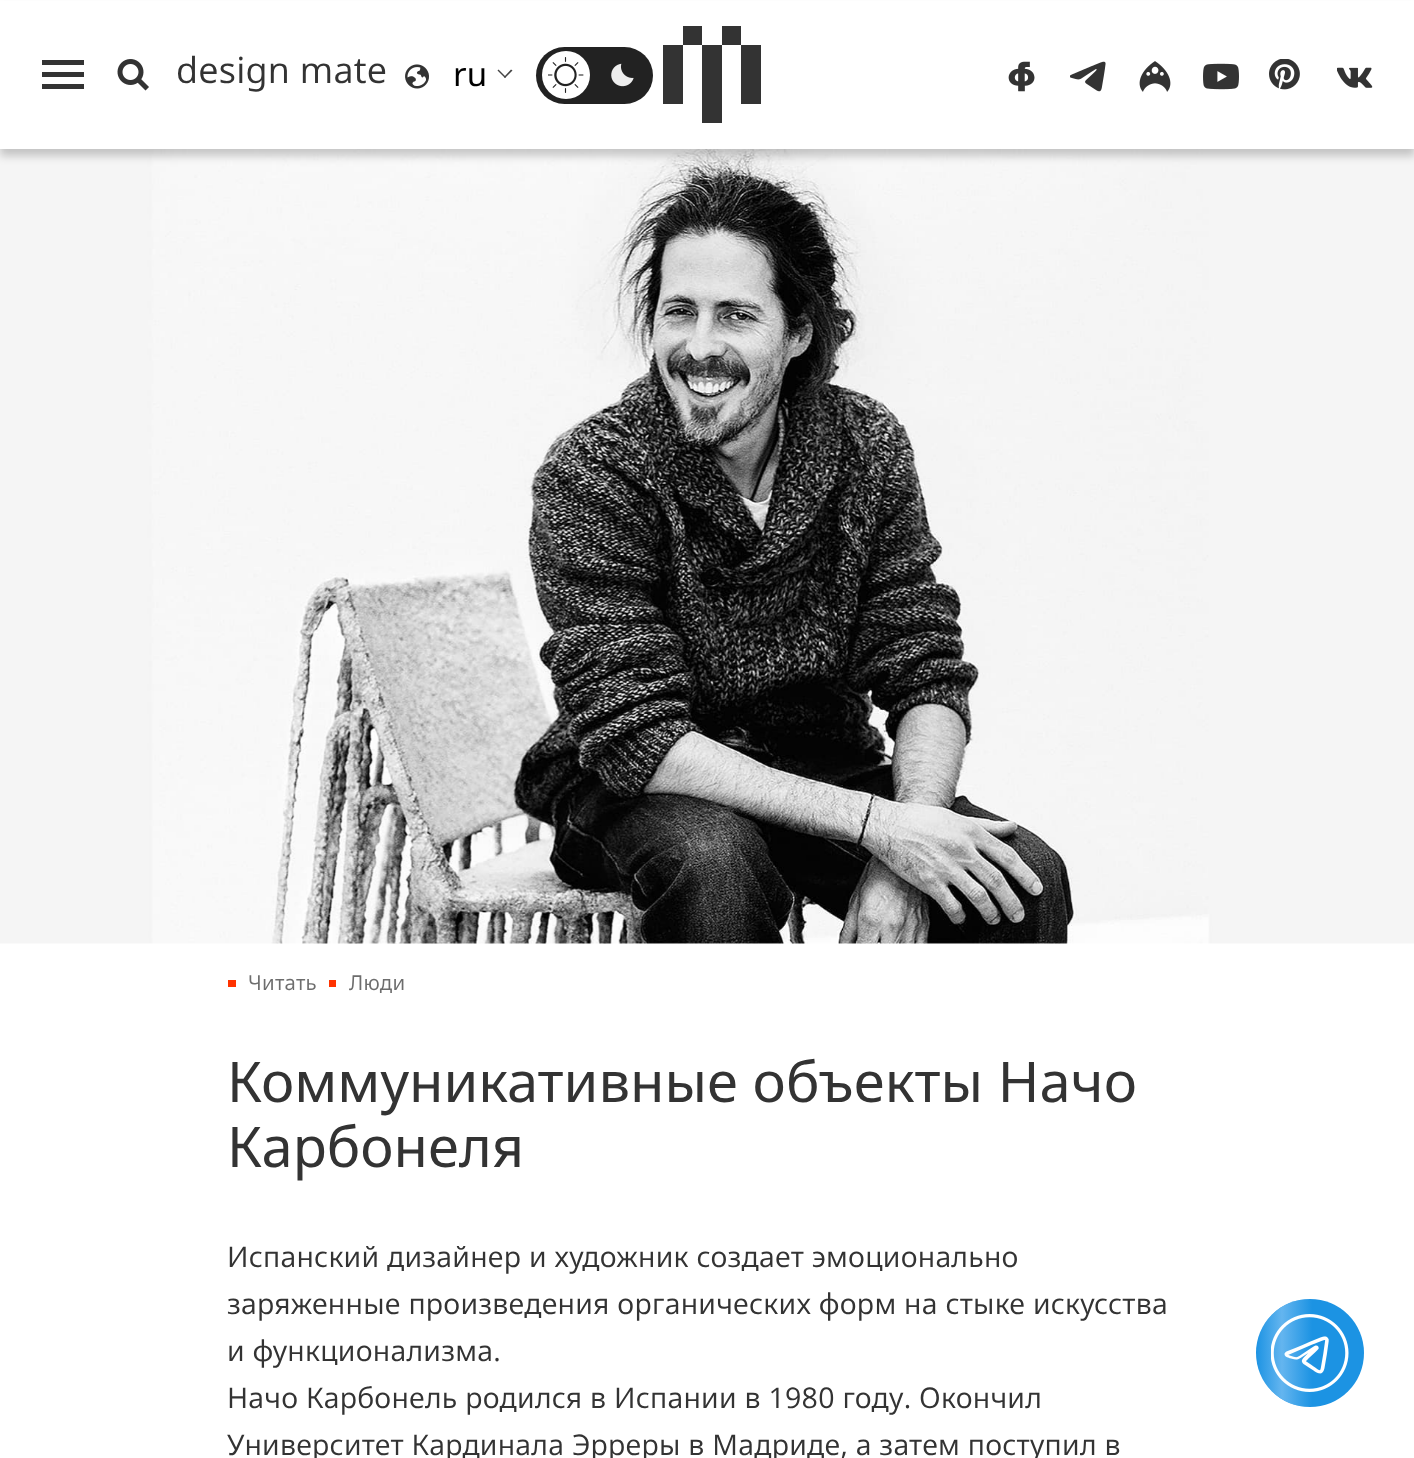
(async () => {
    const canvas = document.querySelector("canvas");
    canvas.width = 1414;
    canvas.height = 1458;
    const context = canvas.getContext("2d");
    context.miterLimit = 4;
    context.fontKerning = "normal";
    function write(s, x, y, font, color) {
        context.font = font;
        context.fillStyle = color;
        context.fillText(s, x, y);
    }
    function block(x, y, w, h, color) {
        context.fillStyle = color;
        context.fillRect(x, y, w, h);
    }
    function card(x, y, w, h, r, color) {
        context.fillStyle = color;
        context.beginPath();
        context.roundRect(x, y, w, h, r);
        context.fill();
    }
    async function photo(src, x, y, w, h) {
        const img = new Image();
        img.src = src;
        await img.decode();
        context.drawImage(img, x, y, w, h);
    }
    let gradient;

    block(0, 0, 1414, 1458, "rgb(255, 255, 255)");
    await photo("media/11.png", 0, 149, 1414, 795);
    context.fillStyle = "rgba(0, 0, 0, 0.2)";
    context.filter = "blur(4px)";
    context.beginPath();
    context.rect(0, 8, 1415, 148);
    context.fill();
    context.filter = "none";
    block(0, 1, 1414, 148, "rgb(255, 255, 255)");
    block(42, 60, 42, 5, "rgb(51, 51, 51)");
    block(42, 72, 42, 5, "rgb(51, 51, 51)");
    block(42, 84, 42, 5, "rgb(51, 51, 51)");
    await photo("media/1.png", 117, 59, 32, 32);
    context.letterSpacing = "0.25px";
    write("design mate", 176, 83, "36px Noto Sans", "rgb(51, 51, 51)");
    await photo("media/2.png", 405, 64, 24, 25);
    context.letterSpacing = "0px";
    write("ru", 453, 86, "33px 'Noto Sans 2'", "rgb(0, 0, 0)");
    context.fillStyle = "rgb(68, 68, 68)";
    context.beginPath();
    context.moveTo(511, 69.5);
    context.lineTo(512.5, 70.5);
    context.lineTo(505, 78);
    context.lineTo(504, 77);
    context.closePath();
    context.fill();
    context.beginPath();
    context.moveTo(498.5, 69.5);
    context.lineTo(506, 77);
    context.lineTo(505, 78);
    context.lineTo(497.5, 70.5);
    context.closePath();
    context.fill();
    card(536, 47, 117, 57, 28.5, "rgb(34, 34, 34)");
    context.fillStyle = "rgb(255, 255, 255)";
    context.beginPath();
    context.arc(566, 75, 24, 0, Math.PI * 2);
    context.fill();
    await photo("media/3.png", 548, 57, 36, 36);
    await photo("media/4.png", 611, 63, 23, 24);
    block(683, 26, 19, 19, "rgb(51, 51, 51)");
    block(722, 26, 19, 19, "rgb(51, 51, 51)");
    block(663, 45, 20, 59, "rgb(51, 51, 51)");
    block(702, 45, 20, 78, "rgb(51, 51, 51)");
    block(741, 45, 20, 59, "rgb(51, 51, 51)");
    await photo("media/5.png", 1008, 61, 27, 31);
    await photo("media/6.png", 1070, 61, 36, 31);
    await photo("media/7.png", 1139, 61, 32, 31);
    await photo("media/8.png", 1203, 63, 36, 27);
    await photo("media/9.png", 1269, 59, 31, 31);
    await photo("media/10.png", 1337, 67, 36, 21);
    block(228, 980, 8, 7, "rgb(255, 51, 0)");
    context.letterSpacing = "0.25px";
    write("Читать", 248, 990, "20.5px Noto Sans", "rgb(109, 109, 109)");
    block(329, 980, 7, 7, "rgb(255, 51, 0)");
    write("Люди", 349, 990, "20.5px Noto Sans", "rgb(109, 109, 109)");
    context.letterSpacing = "0px";
    write("Коммуникативные объекты Начо", 227, 1102, "56.1px 'Noto Sans 2'", "rgb(51, 51, 51)");
    write("Карбонеля", 227, 1167, "56.1px 'Noto Sans 2'", "rgb(51, 51, 51)");
    context.letterSpacing = "0.25px";
    write("Испанский дизайнер и художник создает эмоционально", 227, 1267, "28.55px Noto Sans", "rgb(51, 51, 51)");
    write("заряженные произведения органических форм на стыке искусства", 227, 1314, "28.55px Noto Sans", "rgb(51, 51, 51)");
    write("и функционализма.", 227, 1361, "28.55px Noto Sans", "rgb(51, 51, 51)");
    write("Начо Карбонель родился в Испании в 1980 году. Окончил", 227, 1408, "28.55px Noto Sans", "rgb(51, 51, 51)");
    write("Университет Кардинала Эрреры в Мадриде, а затем поступил в", 227, 1455, "28.55px Noto Sans", "rgb(51, 51, 51)");
    context.fillStyle = "rgb(28, 147, 227)";
    context.beginPath();
    context.arc(1310, 1353, 54, 0, Math.PI * 2);
    context.fill();
    gradient = context.createLinearGradient(1364, 1353, 1256, 1353);
    gradient.addColorStop(0.48, "rgba(100, 181, 239, 0)");
    gradient.addColorStop(0.76, "rgb(100, 181, 239)");
    gradient.addColorStop(1, "rgba(100, 181, 239, 0)");
    context.fillStyle = gradient;
    context.beginPath();
    context.arc(1310, 1353, 54, 0, Math.PI * 2);
    context.fill();
    await photo("media/12.png", 1271, 1314, 78, 78);
})();
